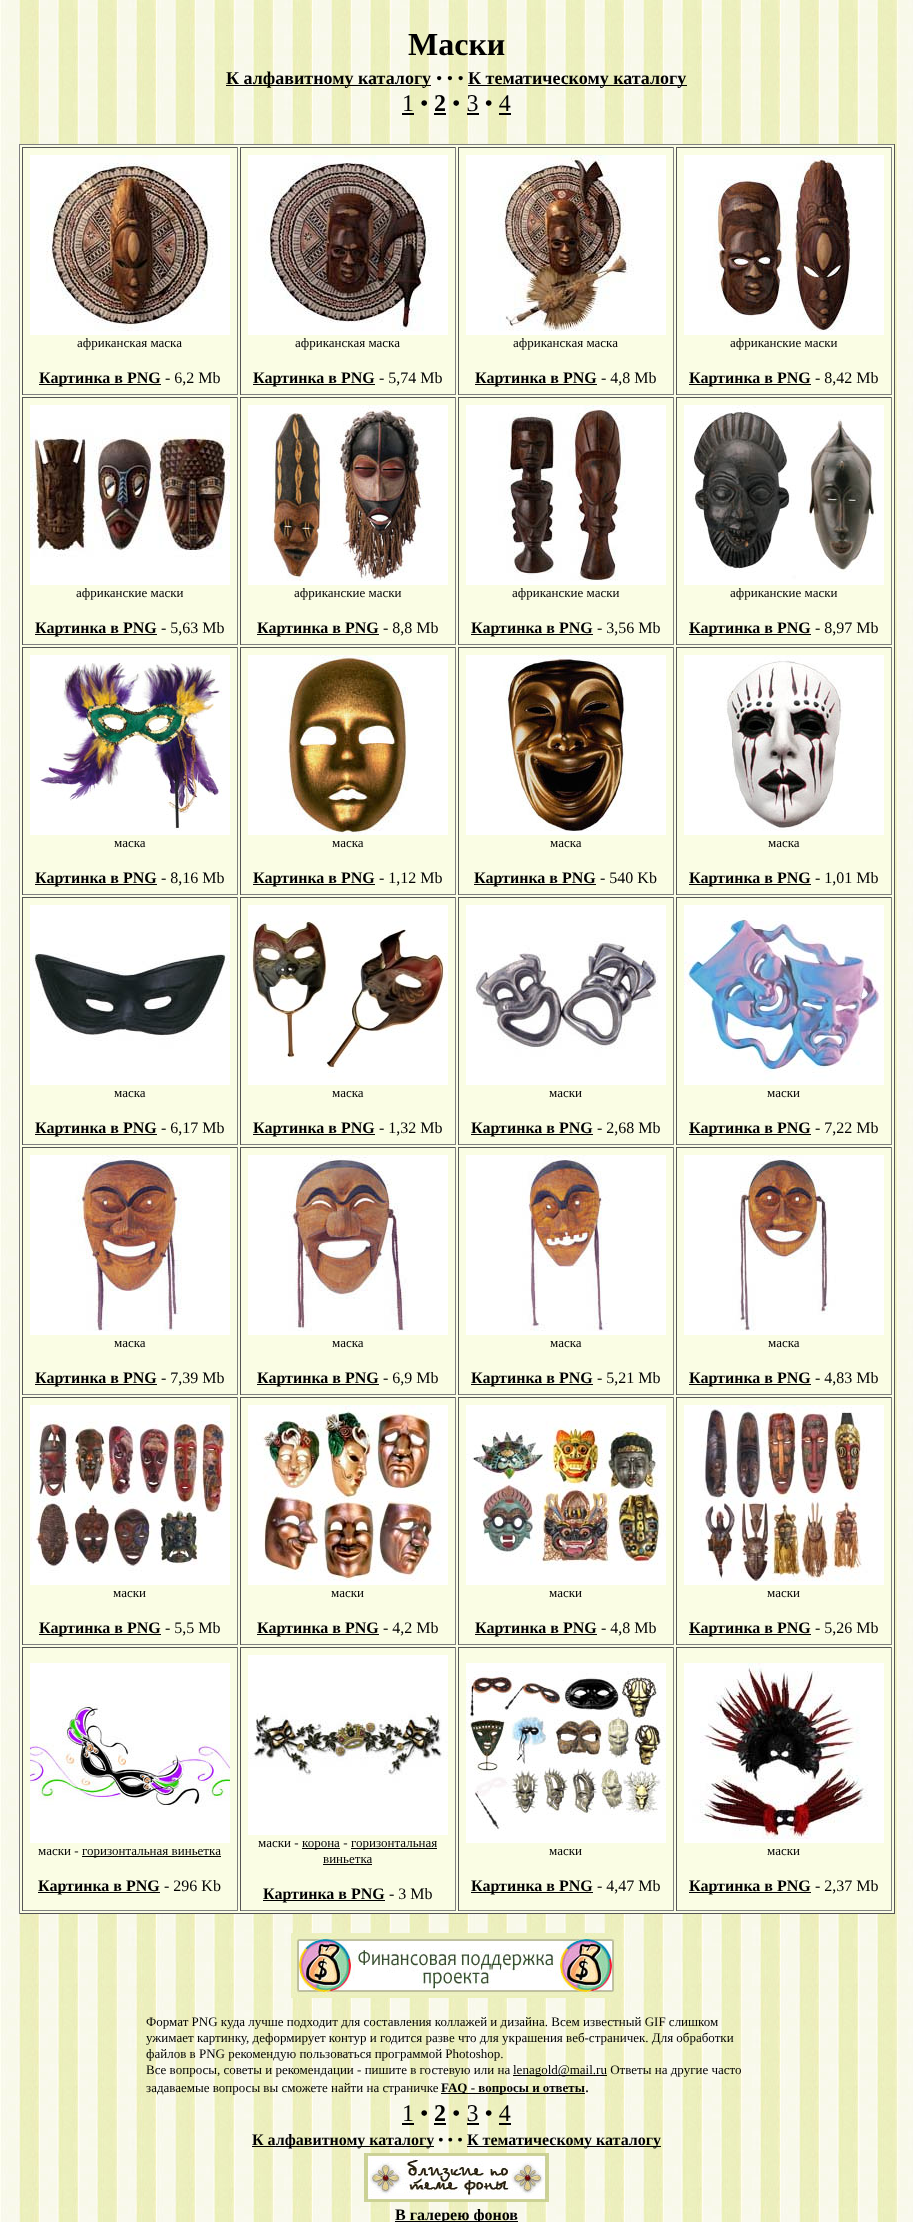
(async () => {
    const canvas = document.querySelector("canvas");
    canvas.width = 913;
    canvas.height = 2222;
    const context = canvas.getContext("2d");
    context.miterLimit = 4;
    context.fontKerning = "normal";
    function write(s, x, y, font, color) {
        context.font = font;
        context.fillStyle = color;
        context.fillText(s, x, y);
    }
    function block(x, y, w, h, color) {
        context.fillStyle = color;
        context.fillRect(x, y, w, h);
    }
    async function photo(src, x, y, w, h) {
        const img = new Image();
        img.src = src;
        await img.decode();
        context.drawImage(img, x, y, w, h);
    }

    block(0, 0, 913, 2222, "rgb(255, 255, 255)");
    await photo("media/1.png", 0, 0, 913, 2222);
    write("Маски", 408, 55, "bold 32px Liberation Serif", "rgb(0, 0, 0)");
    block(226, 85, 205, 1, "rgb(0, 0, 0)");
    write("К алфавитному каталогу", 226, 84, "bold 18px Liberation Serif", "rgb(0, 0, 0)");
    write("• • •", 436, 84, "18px Liberation Serif", "rgb(0, 0, 0)");
    block(468, 85, 219, 1, "rgb(0, 0, 0)");
    write("К тематическому каталогу", 468, 84, "bold 18px Liberation Serif", "rgb(0, 0, 0)");
    write("1 •", 402, 111, "24px Liberation Serif", "rgb(0, 0, 0)");
    block(402, 113, 12, 2, "rgb(0, 0, 0)");
    write("2", 434, 111, "bold 24px Liberation Serif", "rgb(0, 0, 0)");
    block(434, 113, 12, 2, "rgb(0, 0, 0)");
    write("• 3 • 4", 452, 111, "24px Liberation Serif", "rgb(0, 0, 0)");
    block(467, 113, 12, 2, "rgb(0, 0, 0)");
    block(499, 113, 12, 2, "rgb(0, 0, 0)");
    block(20, 145, 874, 1768, "rgb(250, 253, 228)");
    block(19, 144, 876, 1, "rgb(128, 128, 128)");
    block(894, 144, 1, 1770, "rgb(85, 85, 85)");
    block(19, 1913, 876, 1, "rgb(85, 85, 85)");
    block(19, 144, 1, 1770, "rgb(128, 128, 128)");
    block(22, 147, 216, 1, "rgb(85, 85, 85)");
    block(237, 147, 1, 248, "rgb(128, 128, 128)");
    block(22, 394, 216, 1, "rgb(128, 128, 128)");
    block(22, 147, 1, 248, "rgb(85, 85, 85)");
    await photo("media/2.png", 30, 155, 200, 180);
    write("африканская маска", 77, 347, "13px Liberation Serif", "rgb(0, 0, 0)");
    block(39, 384, 122, 1, "rgb(0, 0, 0)");
    write("Картинка в PNG", 39, 383, "bold 16px Liberation Serif", "rgb(0, 0, 0)");
    write("- 6,2 Mb", 165, 383, "16px Liberation Serif", "rgb(0, 0, 0)");
    block(240, 147, 216, 1, "rgb(85, 85, 85)");
    block(455, 147, 1, 248, "rgb(128, 128, 128)");
    block(240, 394, 216, 1, "rgb(128, 128, 128)");
    block(240, 147, 1, 248, "rgb(85, 85, 85)");
    await photo("media/3.png", 248, 155, 200, 180);
    write("африканская маска", 295, 347, "13px Liberation Serif", "rgb(0, 0, 0)");
    block(253, 384, 122, 1, "rgb(0, 0, 0)");
    write("Картинка в PNG", 253, 383, "bold 16px Liberation Serif", "rgb(0, 0, 0)");
    write("- 5,74 Mb", 379, 383, "16px Liberation Serif", "rgb(0, 0, 0)");
    block(458, 147, 216, 1, "rgb(85, 85, 85)");
    block(673, 147, 1, 248, "rgb(128, 128, 128)");
    block(458, 394, 216, 1, "rgb(128, 128, 128)");
    block(458, 147, 1, 248, "rgb(85, 85, 85)");
    await photo("media/4.png", 466, 155, 200, 180);
    write("африканская маска", 513, 347, "13px Liberation Serif", "rgb(0, 0, 0)");
    block(475, 384, 122, 1, "rgb(0, 0, 0)");
    write("Картинка в PNG", 475, 383, "bold 16px Liberation Serif", "rgb(0, 0, 0)");
    write("- 4,8 Mb", 601, 383, "16px Liberation Serif", "rgb(0, 0, 0)");
    block(676, 147, 216, 1, "rgb(85, 85, 85)");
    block(891, 147, 1, 248, "rgb(128, 128, 128)");
    block(676, 394, 216, 1, "rgb(128, 128, 128)");
    block(676, 147, 1, 248, "rgb(85, 85, 85)");
    await photo("media/5.png", 684, 155, 200, 180);
    write("африканские маски", 730, 347, "13px Liberation Serif", "rgb(0, 0, 0)");
    block(689, 384, 122, 1, "rgb(0, 0, 0)");
    write("Картинка в PNG", 689, 383, "bold 16px Liberation Serif", "rgb(0, 0, 0)");
    write("- 8,42 Mb", 815, 383, "16px Liberation Serif", "rgb(0, 0, 0)");
    block(22, 397, 216, 1, "rgb(85, 85, 85)");
    block(237, 397, 1, 248, "rgb(128, 128, 128)");
    block(22, 644, 216, 1, "rgb(128, 128, 128)");
    block(22, 397, 1, 248, "rgb(85, 85, 85)");
    await photo("media/6.png", 30, 405, 200, 180);
    write("африканские маски", 76, 597, "13px Liberation Serif", "rgb(0, 0, 0)");
    block(35, 634, 122, 1, "rgb(0, 0, 0)");
    write("Картинка в PNG", 35, 633, "bold 16px Liberation Serif", "rgb(0, 0, 0)");
    write("- 5,63 Mb", 161, 633, "16px Liberation Serif", "rgb(0, 0, 0)");
    block(240, 397, 216, 1, "rgb(85, 85, 85)");
    block(455, 397, 1, 248, "rgb(128, 128, 128)");
    block(240, 644, 216, 1, "rgb(128, 128, 128)");
    block(240, 397, 1, 248, "rgb(85, 85, 85)");
    await photo("media/7.png", 248, 405, 200, 180);
    write("африканские маски", 294, 597, "13px Liberation Serif", "rgb(0, 0, 0)");
    block(257, 634, 122, 1, "rgb(0, 0, 0)");
    write("Картинка в PNG", 257, 633, "bold 16px Liberation Serif", "rgb(0, 0, 0)");
    write("- 8,8 Mb", 383, 633, "16px Liberation Serif", "rgb(0, 0, 0)");
    block(458, 397, 216, 1, "rgb(85, 85, 85)");
    block(673, 397, 1, 248, "rgb(128, 128, 128)");
    block(458, 644, 216, 1, "rgb(128, 128, 128)");
    block(458, 397, 1, 248, "rgb(85, 85, 85)");
    await photo("media/8.png", 466, 405, 200, 180);
    write("африканские маски", 512, 597, "13px Liberation Serif", "rgb(0, 0, 0)");
    block(471, 634, 122, 1, "rgb(0, 0, 0)");
    write("Картинка в PNG", 471, 633, "bold 16px Liberation Serif", "rgb(0, 0, 0)");
    write("- 3,56 Mb", 597, 633, "16px Liberation Serif", "rgb(0, 0, 0)");
    block(676, 397, 216, 1, "rgb(85, 85, 85)");
    block(891, 397, 1, 248, "rgb(128, 128, 128)");
    block(676, 644, 216, 1, "rgb(128, 128, 128)");
    block(676, 397, 1, 248, "rgb(85, 85, 85)");
    await photo("media/9.png", 684, 405, 200, 180);
    write("африканские маски", 730, 597, "13px Liberation Serif", "rgb(0, 0, 0)");
    block(689, 634, 122, 1, "rgb(0, 0, 0)");
    write("Картинка в PNG", 689, 633, "bold 16px Liberation Serif", "rgb(0, 0, 0)");
    write("- 8,97 Mb", 815, 633, "16px Liberation Serif", "rgb(0, 0, 0)");
    block(22, 647, 216, 1, "rgb(85, 85, 85)");
    block(237, 647, 1, 248, "rgb(128, 128, 128)");
    block(22, 894, 216, 1, "rgb(128, 128, 128)");
    block(22, 647, 1, 248, "rgb(85, 85, 85)");
    await photo("media/10.png", 30, 655, 200, 180);
    write("маска", 114, 847, "13px Liberation Serif", "rgb(0, 0, 0)");
    block(35, 884, 122, 1, "rgb(0, 0, 0)");
    write("Картинка в PNG", 35, 883, "bold 16px Liberation Serif", "rgb(0, 0, 0)");
    write("- 8,16 Mb", 161, 883, "16px Liberation Serif", "rgb(0, 0, 0)");
    block(240, 647, 216, 1, "rgb(85, 85, 85)");
    block(455, 647, 1, 248, "rgb(128, 128, 128)");
    block(240, 894, 216, 1, "rgb(128, 128, 128)");
    block(240, 647, 1, 248, "rgb(85, 85, 85)");
    await photo("media/11.png", 248, 655, 200, 180);
    write("маска", 332, 847, "13px Liberation Serif", "rgb(0, 0, 0)");
    block(253, 884, 122, 1, "rgb(0, 0, 0)");
    write("Картинка в PNG", 253, 883, "bold 16px Liberation Serif", "rgb(0, 0, 0)");
    write("- 1,12 Mb", 379, 883, "16px Liberation Serif", "rgb(0, 0, 0)");
    block(458, 647, 216, 1, "rgb(85, 85, 85)");
    block(673, 647, 1, 248, "rgb(128, 128, 128)");
    block(458, 894, 216, 1, "rgb(128, 128, 128)");
    block(458, 647, 1, 248, "rgb(85, 85, 85)");
    await photo("media/12.png", 466, 655, 200, 180);
    write("маска", 550, 847, "13px Liberation Serif", "rgb(0, 0, 0)");
    block(474, 884, 122, 1, "rgb(0, 0, 0)");
    write("Картинка в PNG", 474, 883, "bold 16px Liberation Serif", "rgb(0, 0, 0)");
    write("- 540 Kb", 600, 883, "16px Liberation Serif", "rgb(0, 0, 0)");
    block(676, 647, 216, 1, "rgb(85, 85, 85)");
    block(891, 647, 1, 248, "rgb(128, 128, 128)");
    block(676, 894, 216, 1, "rgb(128, 128, 128)");
    block(676, 647, 1, 248, "rgb(85, 85, 85)");
    await photo("media/13.png", 684, 655, 200, 180);
    write("маска", 768, 847, "13px Liberation Serif", "rgb(0, 0, 0)");
    block(689, 884, 122, 1, "rgb(0, 0, 0)");
    write("Картинка в PNG", 689, 883, "bold 16px Liberation Serif", "rgb(0, 0, 0)");
    write("- 1,01 Mb", 815, 883, "16px Liberation Serif", "rgb(0, 0, 0)");
    block(22, 897, 216, 1, "rgb(85, 85, 85)");
    block(237, 897, 1, 248, "rgb(128, 128, 128)");
    block(22, 1144, 216, 1, "rgb(128, 128, 128)");
    block(22, 897, 1, 248, "rgb(85, 85, 85)");
    await photo("media/14.png", 30, 905, 200, 180);
    write("маска", 114, 1097, "13px Liberation Serif", "rgb(0, 0, 0)");
    block(35, 1134, 122, 1, "rgb(0, 0, 0)");
    write("Картинка в PNG", 35, 1133, "bold 16px Liberation Serif", "rgb(0, 0, 0)");
    write("- 6,17 Mb", 161, 1133, "16px Liberation Serif", "rgb(0, 0, 0)");
    block(240, 897, 216, 1, "rgb(85, 85, 85)");
    block(455, 897, 1, 248, "rgb(128, 128, 128)");
    block(240, 1144, 216, 1, "rgb(128, 128, 128)");
    block(240, 897, 1, 248, "rgb(85, 85, 85)");
    await photo("media/15.png", 248, 905, 200, 180);
    write("маска", 332, 1097, "13px Liberation Serif", "rgb(0, 0, 0)");
    block(253, 1134, 122, 1, "rgb(0, 0, 0)");
    write("Картинка в PNG", 253, 1133, "bold 16px Liberation Serif", "rgb(0, 0, 0)");
    write("- 1,32 Mb", 379, 1133, "16px Liberation Serif", "rgb(0, 0, 0)");
    block(458, 897, 216, 1, "rgb(85, 85, 85)");
    block(673, 897, 1, 248, "rgb(128, 128, 128)");
    block(458, 1144, 216, 1, "rgb(128, 128, 128)");
    block(458, 897, 1, 248, "rgb(85, 85, 85)");
    await photo("media/16.png", 466, 905, 200, 180);
    write("маски", 549, 1097, "13px Liberation Serif", "rgb(0, 0, 0)");
    block(471, 1134, 122, 1, "rgb(0, 0, 0)");
    write("Картинка в PNG", 471, 1133, "bold 16px Liberation Serif", "rgb(0, 0, 0)");
    write("- 2,68 Mb", 597, 1133, "16px Liberation Serif", "rgb(0, 0, 0)");
    block(676, 897, 216, 1, "rgb(85, 85, 85)");
    block(891, 897, 1, 248, "rgb(128, 128, 128)");
    block(676, 1144, 216, 1, "rgb(128, 128, 128)");
    block(676, 897, 1, 248, "rgb(85, 85, 85)");
    await photo("media/17.png", 684, 905, 200, 180);
    write("маски", 767, 1097, "13px Liberation Serif", "rgb(0, 0, 0)");
    block(689, 1134, 122, 1, "rgb(0, 0, 0)");
    write("Картинка в PNG", 689, 1133, "bold 16px Liberation Serif", "rgb(0, 0, 0)");
    write("- 7,22 Mb", 815, 1133, "16px Liberation Serif", "rgb(0, 0, 0)");
    block(22, 1147, 216, 1, "rgb(85, 85, 85)");
    block(237, 1147, 1, 248, "rgb(128, 128, 128)");
    block(22, 1394, 216, 1, "rgb(128, 128, 128)");
    block(22, 1147, 1, 248, "rgb(85, 85, 85)");
    await photo("media/18.png", 30, 1155, 200, 180);
    write("маска", 114, 1347, "13px Liberation Serif", "rgb(0, 0, 0)");
    block(35, 1384, 122, 1, "rgb(0, 0, 0)");
    write("Картинка в PNG", 35, 1383, "bold 16px Liberation Serif", "rgb(0, 0, 0)");
    write("- 7,39 Mb", 161, 1383, "16px Liberation Serif", "rgb(0, 0, 0)");
    block(240, 1147, 216, 1, "rgb(85, 85, 85)");
    block(455, 1147, 1, 248, "rgb(128, 128, 128)");
    block(240, 1394, 216, 1, "rgb(128, 128, 128)");
    block(240, 1147, 1, 248, "rgb(85, 85, 85)");
    await photo("media/19.png", 248, 1155, 200, 180);
    write("маска", 332, 1347, "13px Liberation Serif", "rgb(0, 0, 0)");
    block(257, 1384, 122, 1, "rgb(0, 0, 0)");
    write("Картинка в PNG", 257, 1383, "bold 16px Liberation Serif", "rgb(0, 0, 0)");
    write("- 6,9 Mb", 383, 1383, "16px Liberation Serif", "rgb(0, 0, 0)");
    block(458, 1147, 216, 1, "rgb(85, 85, 85)");
    block(673, 1147, 1, 248, "rgb(128, 128, 128)");
    block(458, 1394, 216, 1, "rgb(128, 128, 128)");
    block(458, 1147, 1, 248, "rgb(85, 85, 85)");
    await photo("media/20.png", 466, 1155, 200, 180);
    write("маска", 550, 1347, "13px Liberation Serif", "rgb(0, 0, 0)");
    block(471, 1384, 122, 1, "rgb(0, 0, 0)");
    write("Картинка в PNG", 471, 1383, "bold 16px Liberation Serif", "rgb(0, 0, 0)");
    write("- 5,21 Mb", 597, 1383, "16px Liberation Serif", "rgb(0, 0, 0)");
    block(676, 1147, 216, 1, "rgb(85, 85, 85)");
    block(891, 1147, 1, 248, "rgb(128, 128, 128)");
    block(676, 1394, 216, 1, "rgb(128, 128, 128)");
    block(676, 1147, 1, 248, "rgb(85, 85, 85)");
    await photo("media/21.png", 684, 1155, 200, 180);
    write("маска", 768, 1347, "13px Liberation Serif", "rgb(0, 0, 0)");
    block(689, 1384, 122, 1, "rgb(0, 0, 0)");
    write("Картинка в PNG", 689, 1383, "bold 16px Liberation Serif", "rgb(0, 0, 0)");
    write("- 4,83 Mb", 815, 1383, "16px Liberation Serif", "rgb(0, 0, 0)");
    block(22, 1397, 216, 1, "rgb(85, 85, 85)");
    block(237, 1397, 1, 248, "rgb(128, 128, 128)");
    block(22, 1644, 216, 1, "rgb(128, 128, 128)");
    block(22, 1397, 1, 248, "rgb(85, 85, 85)");
    await photo("media/22.png", 30, 1405, 200, 180);
    write("маски", 113, 1597, "13px Liberation Serif", "rgb(0, 0, 0)");
    block(39, 1634, 122, 1, "rgb(0, 0, 0)");
    write("Картинка в PNG", 39, 1633, "bold 16px Liberation Serif", "rgb(0, 0, 0)");
    write("- 5,5 Mb", 165, 1633, "16px Liberation Serif", "rgb(0, 0, 0)");
    block(240, 1397, 216, 1, "rgb(85, 85, 85)");
    block(455, 1397, 1, 248, "rgb(128, 128, 128)");
    block(240, 1644, 216, 1, "rgb(128, 128, 128)");
    block(240, 1397, 1, 248, "rgb(85, 85, 85)");
    await photo("media/23.png", 248, 1405, 200, 180);
    write("маски", 331, 1597, "13px Liberation Serif", "rgb(0, 0, 0)");
    block(257, 1634, 122, 1, "rgb(0, 0, 0)");
    write("Картинка в PNG", 257, 1633, "bold 16px Liberation Serif", "rgb(0, 0, 0)");
    write("- 4,2 Mb", 383, 1633, "16px Liberation Serif", "rgb(0, 0, 0)");
    block(458, 1397, 216, 1, "rgb(85, 85, 85)");
    block(673, 1397, 1, 248, "rgb(128, 128, 128)");
    block(458, 1644, 216, 1, "rgb(128, 128, 128)");
    block(458, 1397, 1, 248, "rgb(85, 85, 85)");
    await photo("media/24.png", 466, 1405, 200, 180);
    write("маски", 549, 1597, "13px Liberation Serif", "rgb(0, 0, 0)");
    block(475, 1634, 122, 1, "rgb(0, 0, 0)");
    write("Картинка в PNG", 475, 1633, "bold 16px Liberation Serif", "rgb(0, 0, 0)");
    write("- 4,8 Mb", 601, 1633, "16px Liberation Serif", "rgb(0, 0, 0)");
    block(676, 1397, 216, 1, "rgb(85, 85, 85)");
    block(891, 1397, 1, 248, "rgb(128, 128, 128)");
    block(676, 1644, 216, 1, "rgb(128, 128, 128)");
    block(676, 1397, 1, 248, "rgb(85, 85, 85)");
    await photo("media/25.png", 684, 1405, 200, 180);
    write("маски", 767, 1597, "13px Liberation Serif", "rgb(0, 0, 0)");
    block(689, 1634, 122, 1, "rgb(0, 0, 0)");
    write("Картинка в PNG", 689, 1633, "bold 16px Liberation Serif", "rgb(0, 0, 0)");
    write("- 5,26 Mb", 815, 1633, "16px Liberation Serif", "rgb(0, 0, 0)");
    block(22, 1647, 216, 1, "rgb(85, 85, 85)");
    block(237, 1647, 1, 264, "rgb(128, 128, 128)");
    block(22, 1910, 216, 1, "rgb(128, 128, 128)");
    block(22, 1647, 1, 264, "rgb(85, 85, 85)");
    await photo("media/26.png", 30, 1663, 200, 180);
    write("маски -", 38, 1855, "13px Liberation Serif", "rgb(0, 0, 0)");
    block(82, 1856, 139, 1, "rgb(0, 0, 0)");
    write("горизонтальная виньетка", 82, 1855, "13px Liberation Serif", "rgb(0, 0, 0)");
    block(38, 1892, 122, 1, "rgb(0, 0, 0)");
    write("Картинка в PNG", 38, 1891, "bold 16px Liberation Serif", "rgb(0, 0, 0)");
    write("- 296 Kb", 164, 1891, "16px Liberation Serif", "rgb(0, 0, 0)");
    block(240, 1647, 216, 1, "rgb(85, 85, 85)");
    block(455, 1647, 1, 264, "rgb(128, 128, 128)");
    block(240, 1910, 216, 1, "rgb(128, 128, 128)");
    block(240, 1647, 1, 264, "rgb(85, 85, 85)");
    await photo("media/27.png", 248, 1655, 200, 180);
    write("маски -", 258, 1847, "13px Liberation Serif", "rgb(0, 0, 0)");
    block(302, 1848, 38, 1, "rgb(0, 0, 0)");
    write("корона -", 302, 1847, "13px Liberation Serif", "rgb(0, 0, 0)");
    block(351, 1848, 86, 1, "rgb(0, 0, 0)");
    write("горизонтальная", 351, 1847, "13px Liberation Serif", "rgb(0, 0, 0)");
    write("виньетка", 323, 1863, "13px Liberation Serif", "rgb(0, 0, 0)");
    block(323, 1864, 49, 1, "rgb(0, 0, 0)");
    block(263, 1900, 122, 1, "rgb(0, 0, 0)");
    write("Картинка в PNG", 263, 1899, "bold 16px Liberation Serif", "rgb(0, 0, 0)");
    write("- 3 Mb", 389, 1899, "16px Liberation Serif", "rgb(0, 0, 0)");
    block(458, 1647, 216, 1, "rgb(85, 85, 85)");
    block(673, 1647, 1, 264, "rgb(128, 128, 128)");
    block(458, 1910, 216, 1, "rgb(128, 128, 128)");
    block(458, 1647, 1, 264, "rgb(85, 85, 85)");
    await photo("media/28.png", 466, 1663, 200, 180);
    write("маски", 549, 1855, "13px Liberation Serif", "rgb(0, 0, 0)");
    block(471, 1892, 122, 1, "rgb(0, 0, 0)");
    write("Картинка в PNG", 471, 1891, "bold 16px Liberation Serif", "rgb(0, 0, 0)");
    write("- 4,47 Mb", 597, 1891, "16px Liberation Serif", "rgb(0, 0, 0)");
    block(676, 1647, 216, 1, "rgb(85, 85, 85)");
    block(891, 1647, 1, 264, "rgb(128, 128, 128)");
    block(676, 1910, 216, 1, "rgb(128, 128, 128)");
    block(676, 1647, 1, 264, "rgb(85, 85, 85)");
    await photo("media/29.png", 684, 1663, 200, 180);
    write("маски", 767, 1855, "13px Liberation Serif", "rgb(0, 0, 0)");
    block(689, 1892, 122, 1, "rgb(0, 0, 0)");
    write("Картинка в PNG", 689, 1891, "bold 16px Liberation Serif", "rgb(0, 0, 0)");
    write("- 2,37 Mb", 815, 1891, "16px Liberation Serif", "rgb(0, 0, 0)");
    await photo("media/30.png", 291, 1933, 328, 65);
    write("Формат PNG куда лучше подходит для составления коллажей и дизайна. Всем известный GIF слишком", 146, 2026, "13px Liberation Serif", "rgb(0, 0, 0)");
    write("ужимает картинку, деформирует контур и годится разве что для украшения веб-страничек. Для обработки", 146, 2042, "13px Liberation Serif", "rgb(0, 0, 0)");
    write("файлов в PNG рекомендую пользоваться программой Photoshop.", 146, 2058, "13px Liberation Serif", "rgb(0, 0, 0)");
    write("Все вопросы, советы и рекомендации - пишите в гостевую или на", 146, 2074, "13px Liberation Serif", "rgb(0, 0, 0)");
    block(513, 2075, 94, 1, "rgb(0, 0, 0)");
    write("lenagold@mail.ru Ответы на другие часто", 513, 2074, "13px Liberation Serif", "rgb(0, 0, 0)");
    write("задаваемые вопросы вы сможете найти на страничке", 146, 2092, "13px Liberation Serif", "rgb(0, 0, 0)");
    block(441, 2093, 144, 1, "rgb(0, 0, 0)");
    write("FAQ - вопросы и ответы", 441, 2092, "bold 13px Liberation Serif", "rgb(0, 0, 0)");
    write(".", 585, 2092, "16px Liberation Serif", "rgb(0, 0, 0)");
    write("1 •", 402, 2121, "24px Liberation Serif", "rgb(0, 0, 0)");
    block(402, 2123, 12, 2, "rgb(0, 0, 0)");
    write("2", 434, 2121, "bold 24px Liberation Serif", "rgb(0, 0, 0)");
    block(434, 2123, 12, 2, "rgb(0, 0, 0)");
    write("• 3 • 4", 452, 2121, "24px Liberation Serif", "rgb(0, 0, 0)");
    block(467, 2123, 12, 2, "rgb(0, 0, 0)");
    block(499, 2123, 12, 2, "rgb(0, 0, 0)");
    block(252, 2146, 182, 1, "rgb(0, 0, 0)");
    write("К алфавитному каталогу", 252, 2145, "bold 16px Liberation Serif", "rgb(0, 0, 0)");
    write("• • •", 438, 2145, "16px Liberation Serif", "rgb(0, 0, 0)");
    block(467, 2146, 194, 1, "rgb(0, 0, 0)");
    write("К тематическому каталогу", 467, 2145, "bold 16px Liberation Serif", "rgb(0, 0, 0)");
    await photo("media/31.png", 364, 2153, 185, 49);
    block(395, 2221, 123, 1, "rgb(0, 0, 0)");
    write("В галерею фонов", 395, 2220, "bold 16px Liberation Serif", "rgb(0, 0, 0)");
})();
